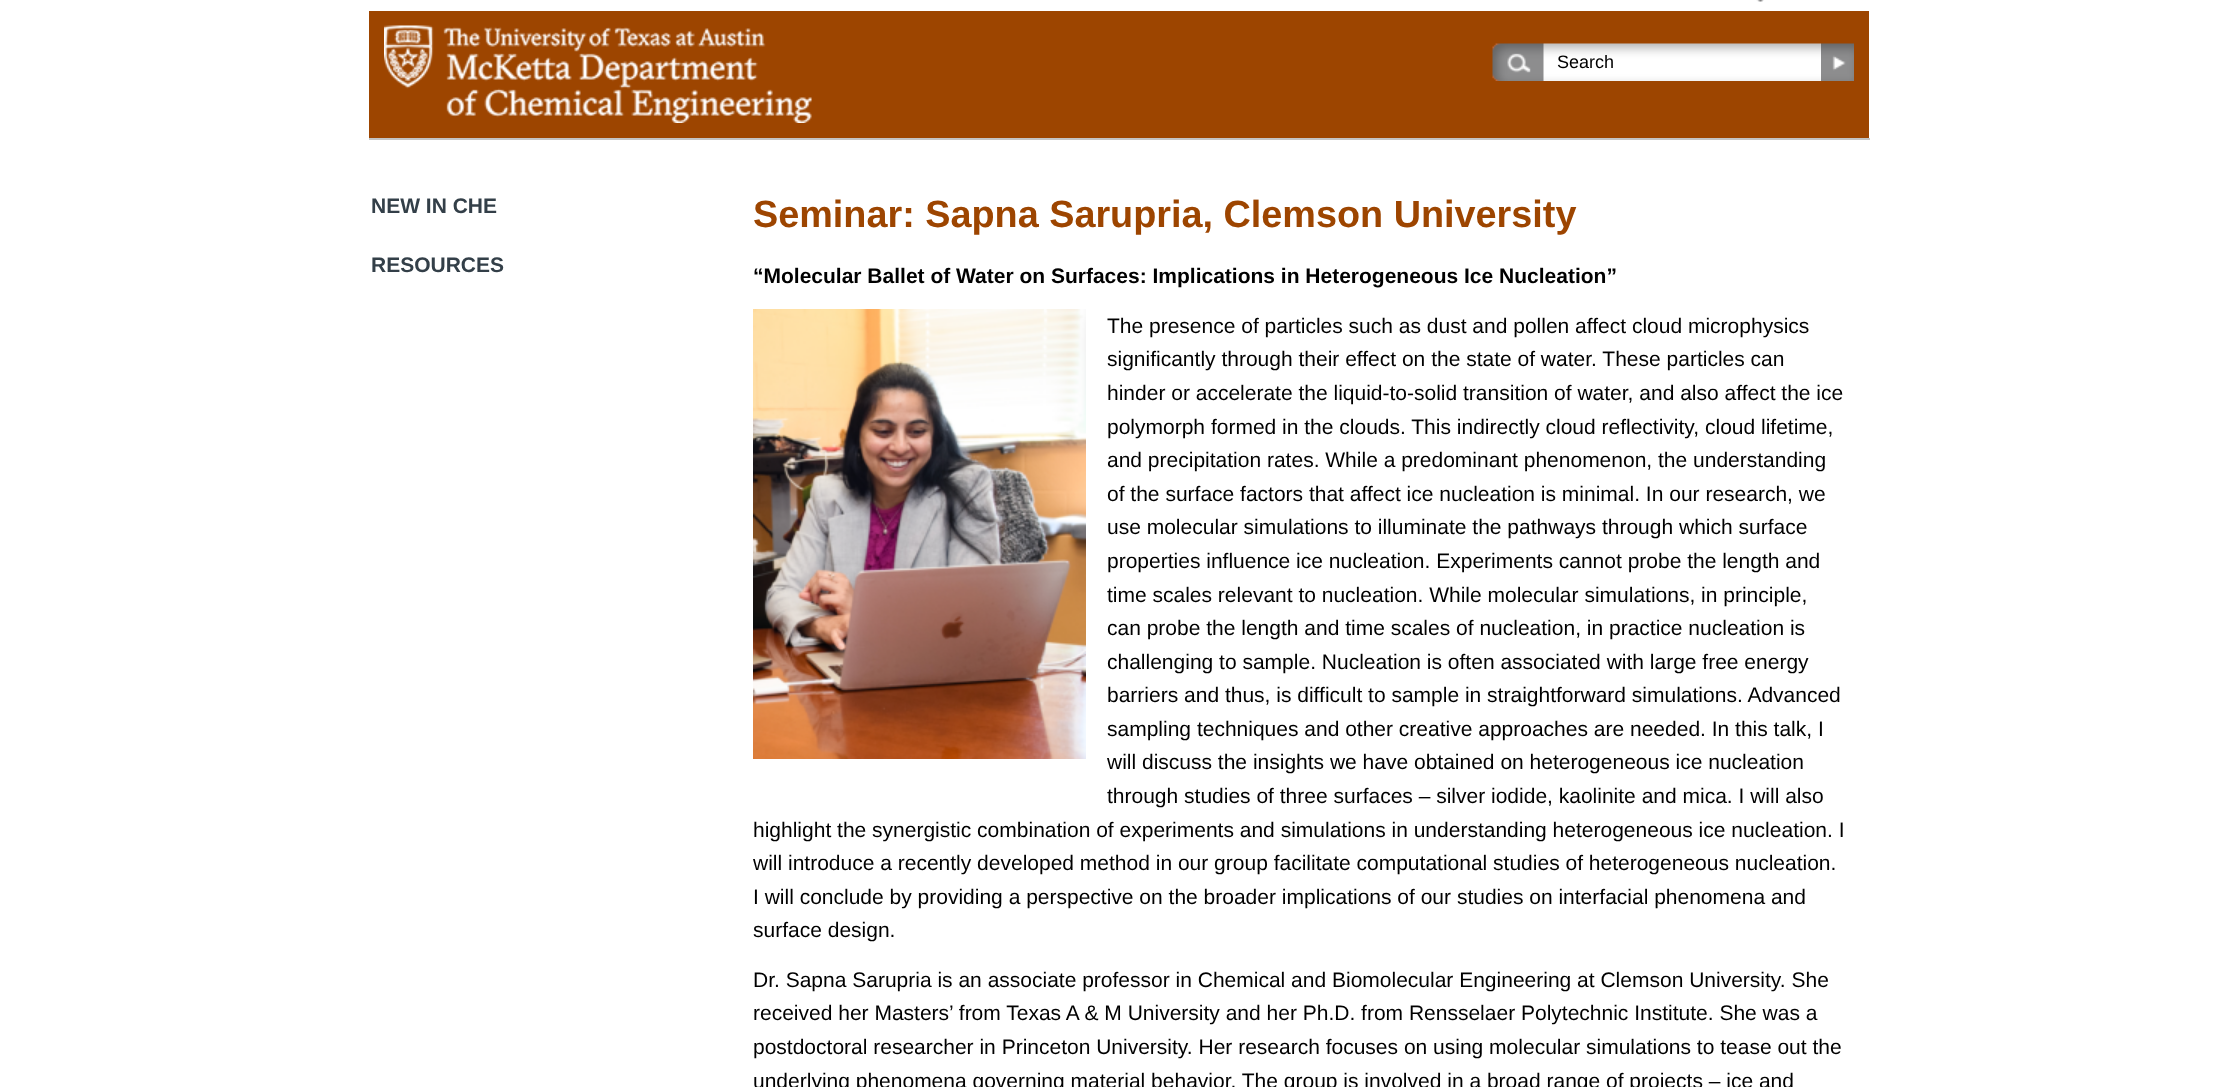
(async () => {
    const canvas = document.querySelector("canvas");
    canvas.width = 2237;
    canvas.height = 1087;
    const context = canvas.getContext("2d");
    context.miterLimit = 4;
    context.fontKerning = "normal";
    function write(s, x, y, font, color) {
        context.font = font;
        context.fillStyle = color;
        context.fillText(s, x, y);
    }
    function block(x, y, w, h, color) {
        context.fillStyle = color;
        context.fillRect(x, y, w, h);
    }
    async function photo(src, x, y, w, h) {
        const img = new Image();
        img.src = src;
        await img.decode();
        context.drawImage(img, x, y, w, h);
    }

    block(0, 0, 2237, 1087, "rgb(255, 255, 255)");
    await photo("media/1.png", 1756, 0, 8, 2);
    block(369, 11, 1500, 127, "rgb(157, 69, 0)");
    await photo("media/2.png", 384, 25, 428, 98);
    await photo("media/3.png", 1492, 43, 329, 38);
    write("Search", 1557, 68, "18px Liberation Sans", "rgb(0, 0, 0)");
    await photo("media/4.png", 1821, 43, 33, 38);
    block(369, 138, 1501, 2, "rgb(196, 196, 196)");
    write("NEW IN CHE", 371, 213, "bold 21px Liberation Sans", "rgb(51, 63, 72)");
    write("RESOURCES", 371, 272, "bold 21px Liberation Sans", "rgb(51, 63, 72)");
    write("Seminar: Sapna Sarupria, Clemson University", 753, 227, "bold 37.8px Liberation Sans", "rgb(157, 69, 0)");
    write("“Molecular Ballet of Water on Surfaces: Implications in Heterogeneous Ice Nucleation”", 753, 283, "bold 21px Liberation Sans", "rgb(0, 0, 0)");
    await photo("media/5.png", 753, 309, 333, 450);
    write("The presence of particles such as dust and pollen affect cloud microphysics", 1107, 333, "21px Liberation Sans", "rgb(0, 0, 0)");
    write("significantly through their effect on the state of water. These particles can", 1107, 366, "21px Liberation Sans", "rgb(0, 0, 0)");
    write("hinder or accelerate the liquid-to-solid transition of water, and also affect the ice", 1107, 400, "21px Liberation Sans", "rgb(0, 0, 0)");
    write("polymorph formed in the clouds. This indirectly cloud reflectivity, cloud lifetime,", 1107, 434, "21px Liberation Sans", "rgb(0, 0, 0)");
    write("and precipitation rates. While a predominant phenomenon, the understanding", 1107, 467, "21px Liberation Sans", "rgb(0, 0, 0)");
    write("of the surface factors that affect ice nucleation is minimal. In our research, we", 1107, 501, "21px Liberation Sans", "rgb(0, 0, 0)");
    write("use molecular simulations to illuminate the pathways through which surface", 1107, 534, "21px Liberation Sans", "rgb(0, 0, 0)");
    write("properties influence ice nucleation. Experiments cannot probe the length and", 1107, 568, "21px Liberation Sans", "rgb(0, 0, 0)");
    write("time scales relevant to nucleation. While molecular simulations, in principle,", 1107, 602, "21px Liberation Sans", "rgb(0, 0, 0)");
    write("can probe the length and time scales of nucleation, in practice nucleation is", 1107, 635, "21px Liberation Sans", "rgb(0, 0, 0)");
    write("challenging to sample. Nucleation is often associated with large free energy", 1107, 669, "21px Liberation Sans", "rgb(0, 0, 0)");
    write("barriers and thus, is difficult to sample in straightforward simulations. Advanced", 1107, 702, "21px Liberation Sans", "rgb(0, 0, 0)");
    write("sampling techniques and other creative approaches are needed. In this talk, I", 1107, 736, "21px Liberation Sans", "rgb(0, 0, 0)");
    write("will discuss the insights we have obtained on heterogeneous ice nucleation", 1107, 769, "21px Liberation Sans", "rgb(0, 0, 0)");
    write("through studies of three surfaces – silver iodide, kaolinite and mica. I will also", 1107, 803, "21px Liberation Sans", "rgb(0, 0, 0)");
    write("highlight the synergistic combination of experiments and simulations in understanding heterogeneous ice nucleation. I", 753, 837, "21px Liberation Sans", "rgb(0, 0, 0)");
    write("will introduce a recently developed method in our group facilitate computational studies of heterogeneous nucleation.", 753, 870, "21px Liberation Sans", "rgb(0, 0, 0)");
    write("I will conclude by providing a perspective on the broader implications of our studies on interfacial phenomena and", 753, 904, "21px Liberation Sans", "rgb(0, 0, 0)");
    write("surface design.", 753, 937, "21px Liberation Sans", "rgb(0, 0, 0)");
    write("Dr. Sapna Sarupria is an associate professor in Chemical and Biomolecular Engineering at Clemson University. She", 753, 987, "21px Liberation Sans", "rgb(0, 0, 0)");
    write("received her Masters’ from Texas A & M University and her Ph.D. from Rensselaer Polytechnic Institute. She was a", 753, 1020, "21px Liberation Sans", "rgb(0, 0, 0)");
    write("postdoctoral researcher in Princeton University. Her research focuses on using molecular simulations to tease out the", 753, 1054, "21px Liberation Sans", "rgb(0, 0, 0)");
    write("underlying phenomena governing material behavior. The group is involved in a broad range of projects – ice and", 753, 1088, "21px Liberation Sans", "rgb(0, 0, 0)");
})();
